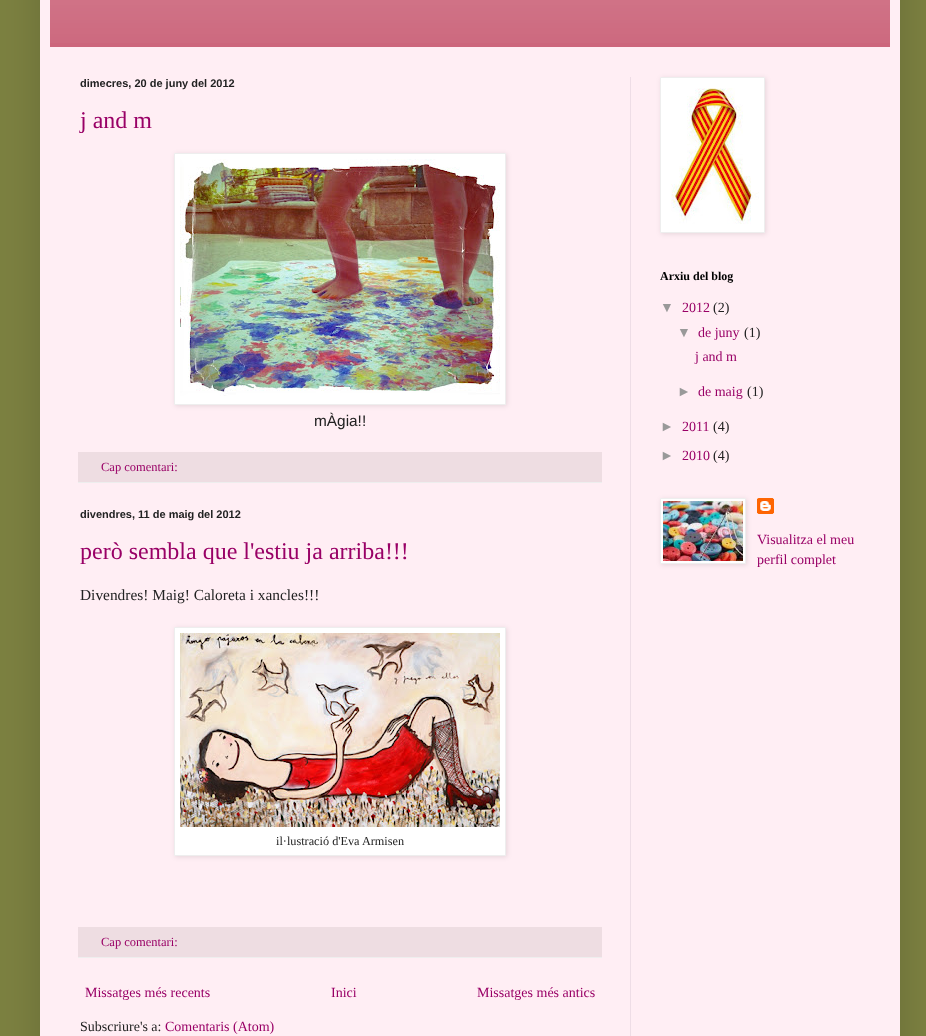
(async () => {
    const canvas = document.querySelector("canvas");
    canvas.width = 926;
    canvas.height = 1036;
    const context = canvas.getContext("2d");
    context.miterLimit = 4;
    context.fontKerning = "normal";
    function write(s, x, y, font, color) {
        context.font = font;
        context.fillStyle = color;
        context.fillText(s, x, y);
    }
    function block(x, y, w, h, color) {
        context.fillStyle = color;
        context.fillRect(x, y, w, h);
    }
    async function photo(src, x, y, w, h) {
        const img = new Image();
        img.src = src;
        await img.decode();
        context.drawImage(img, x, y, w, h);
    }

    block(0, 0, 926, 1036, "rgb(124, 129, 65)");
    context.fillStyle = "rgba(0, 0, 0, 0.15)";
    context.filter = "blur(20px)";
    context.beginPath();
    context.rect(40, -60, 860, 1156);
    context.fill();
    context.filter = "none";
    block(40, 0, 860, 1036, "rgb(255, 238, 244)");
    block(50, 0, 840, 47, "rgb(204, 102, 124)");
    await photo("media/1.png", 50, 0, 840, 43);
    block(630, 77, 1, 959, "rgb(238, 221, 230)");
    write("dimecres, 20 de juny del 2012", 80, 87, "bold 11px Liberation Sans", "rgb(34, 34, 34)");
    write("j and m", 80, 128, "24px Liberation Serif", "rgb(153, 0, 102)");
    context.fillStyle = "rgba(0, 0, 0, 0.1)";
    context.filter = "blur(2.5px)";
    context.beginPath();
    context.rect(175, 154, 332, 252);
    context.fill();
    context.filter = "none";
    context.fillStyle = "rgb(255, 255, 255)";
    context.beginPath();
    context.rect(174.5, 153.5, 331, 251);
    context.fill();
    context.strokeStyle = "rgb(238, 238, 238)";
    context.stroke();
    await photo("media/2.png", 180, 159, 320, 237);
    write("mÀgia!!", 314, 426, "15.4px Liberation Sans", "rgb(34, 34, 34)");
    block(78, 452, 524, 30, "rgb(238, 221, 226)");
    block(78, 482, 524, 1, "rgb(238, 238, 238)");
    write("Cap comentari:", 101, 471, "12.5px Liberation Serif", "rgb(153, 0, 102)");
    write("divendres, 11 de maig del 2012", 80, 518, "bold 11px Liberation Sans", "rgb(34, 34, 34)");
    write("però sembla que l'estiu ja arriba!!!", 80, 559, "24px Liberation Serif", "rgb(153, 0, 102)");
    write("Divendres! Maig! Caloreta i xancles!!!", 80, 600, "15.4px Liberation Serif", "rgb(34, 34, 34)");
    context.fillStyle = "rgba(0, 0, 0, 0.1)";
    context.filter = "blur(2.5px)";
    context.beginPath();
    context.rect(175, 628, 332, 229);
    context.fill();
    context.filter = "none";
    context.fillStyle = "rgb(255, 255, 255)";
    context.beginPath();
    context.rect(174.5, 627.5, 331, 228);
    context.fill();
    context.stroke();
    await photo("media/3.png", 180, 633, 320, 194);
    write("il·lustració d'Eva Armisen", 276, 845, "12.25px Liberation Serif", "rgb(34, 34, 34)");
    block(78, 927, 524, 30, "rgb(238, 221, 226)");
    block(78, 957, 524, 1, "rgb(238, 238, 238)");
    write("Cap comentari:", 101, 946, "12.5px Liberation Serif", "rgb(153, 0, 102)");
    write("Missatges més recents", 85, 997, "14px Liberation Serif", "rgb(153, 0, 102)");
    write("Inici", 331, 997, "14px Liberation Serif", "rgb(153, 0, 102)");
    write("Missatges més antics", 477, 997, "14px Liberation Serif", "rgb(153, 0, 102)");
    write("Subscriure's a:", 80, 1031, "14px Liberation Serif", "rgb(34, 34, 34)");
    write("Comentaris (Atom)", 165, 1031, "14px Liberation Serif", "rgb(153, 0, 102)");
    context.fillStyle = "rgba(0, 0, 0, 0.1)";
    context.filter = "blur(2.5px)";
    context.beginPath();
    context.rect(661, 78, 105, 156);
    context.fill();
    context.filter = "none";
    context.fillStyle = "rgb(255, 255, 255)";
    context.beginPath();
    context.rect(660.5, 77.5, 104, 155);
    context.fill();
    context.stroke();
    await photo("media/4.png", 671, 88, 88, 136);
    write("Arxiu del blog", 660, 280, "bold 12px Liberation Serif", "rgb(0, 0, 0)");
    write("▼", 660, 312, "14px Liberation Sans", "rgb(153, 153, 153)");
    write("2012", 682, 312, "14px Liberation Serif", "rgb(153, 0, 102)");
    write("(2)", 713, 312, "14px Liberation Serif", "rgb(34, 34, 34)");
    write("▼", 677, 337, "14px Liberation Sans", "rgb(153, 153, 153)");
    write("de juny", 698, 337, "14px Liberation Serif", "rgb(153, 0, 102)");
    write("(1)", 744, 337, "14px Liberation Serif", "rgb(34, 34, 34)");
    write("j and m", 695, 361, "14px Liberation Serif", "rgb(153, 0, 102)");
    write("►", 677, 396, "14px Liberation Sans", "rgb(153, 153, 153)");
    write("de maig", 698, 396, "14px Liberation Serif", "rgb(153, 0, 102)");
    write("(1)", 747, 396, "14px Liberation Serif", "rgb(34, 34, 34)");
    write("►", 660, 431, "14px Liberation Sans", "rgb(153, 153, 153)");
    write("2011", 682, 431, "14px Liberation Serif", "rgb(153, 0, 102)");
    write("(4)", 713, 431, "14px Liberation Serif", "rgb(34, 34, 34)");
    write("►", 660, 460, "14px Liberation Sans", "rgb(153, 153, 153)");
    write("2010", 682, 460, "14px Liberation Serif", "rgb(153, 0, 102)");
    write("(4)", 713, 460, "14px Liberation Serif", "rgb(34, 34, 34)");
    context.fillStyle = "rgba(0, 0, 0, 0.1)";
    context.filter = "blur(2.5px)";
    context.beginPath();
    context.rect(661, 499, 86, 66);
    context.fill();
    context.filter = "none";
    context.fillStyle = "rgb(255, 255, 255)";
    context.beginPath();
    context.rect(660.5, 498.5, 85, 65);
    context.fill();
    context.stroke();
    await photo("media/5.png", 663, 501, 80, 60);
    await photo("media/6.png", 757, 498, 17, 16);
    write("Visualitza el meu", 757, 544, "14px Liberation Serif", "rgb(153, 0, 102)");
    write("perfil complet", 757, 564, "14px Liberation Serif", "rgb(153, 0, 102)");
})();
